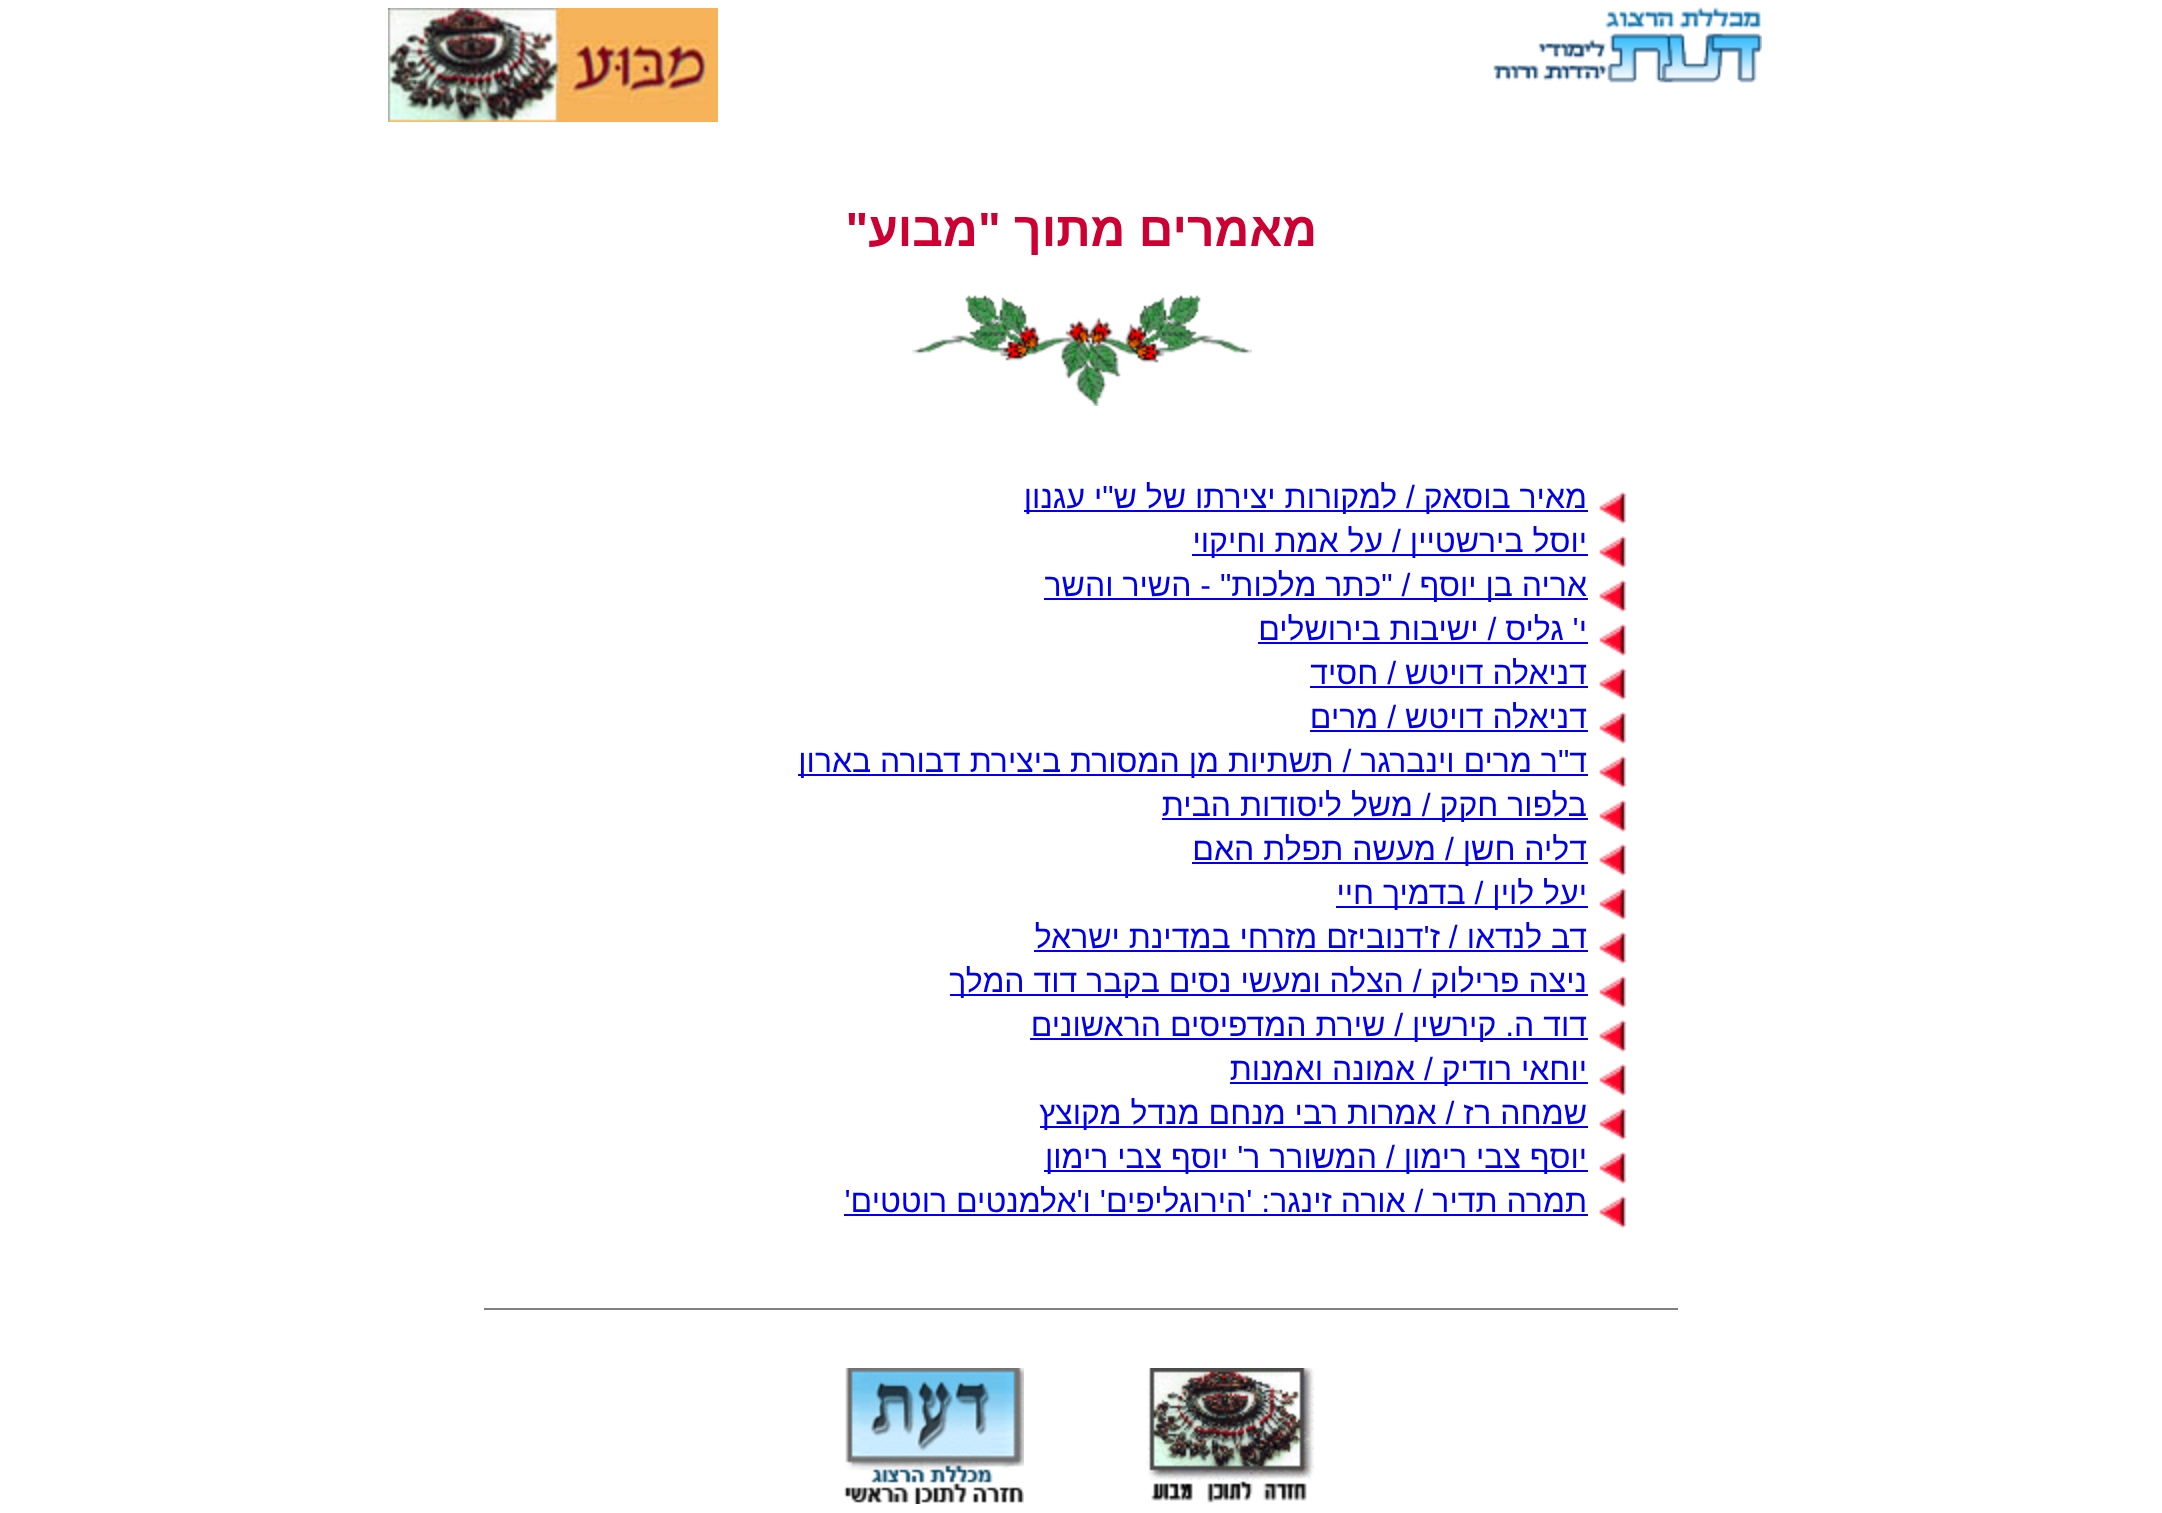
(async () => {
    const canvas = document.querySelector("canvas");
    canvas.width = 2162;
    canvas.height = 1513;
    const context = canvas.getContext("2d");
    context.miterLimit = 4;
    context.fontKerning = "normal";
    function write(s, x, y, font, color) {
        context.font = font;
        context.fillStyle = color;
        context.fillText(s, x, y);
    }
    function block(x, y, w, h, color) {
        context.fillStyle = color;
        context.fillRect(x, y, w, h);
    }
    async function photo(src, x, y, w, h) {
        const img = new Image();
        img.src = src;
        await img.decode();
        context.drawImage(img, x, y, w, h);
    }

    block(0, 0, 2162, 1513, "rgb(255, 255, 255)");
    await photo("media/1.png", 1493, 7, 269, 76);
    await photo("media/2.png", 388, 8, 330, 114);
    context.direction = "rtl";
    write("מאמרים מתוך \"מבוע\"", 1317, 246, "bold 48px Liberation Sans", "rgb(204, 0, 51)");
    await photo("media/3.png", 912, 295, 340, 111);
    await photo("media/4.png", 1599, 492, 27, 32);
    block(1024, 510, 564, 2, "rgb(0, 0, 238)");
    write("מאיר בוסאק", 1587, 508, "32px Liberation Sans", "rgb(0, 0, 238)");
    write("/ למקורות יצירתו של ש\"י עגנון", 1415, 508, "32px Liberation Sans", "rgb(0, 0, 238)");
    await photo("media/4.png", 1599, 536, 27, 32);
    block(1192, 554, 396, 2, "rgb(0, 0, 238)");
    write("יוסל בירשטיין / על אמת וחיקוי", 1587, 552, "32px Liberation Sans", "rgb(0, 0, 238)");
    await photo("media/4.png", 1599, 580, 27, 32);
    block(1044, 598, 544, 2, "rgb(0, 0, 238)");
    write("אריה בן יוסף / \"כתר מלכות\" - השיר והשר", 1587, 596, "32px Liberation Sans", "rgb(0, 0, 238)");
    await photo("media/4.png", 1599, 624, 27, 32);
    write("י' גליס / ישיבות בירושלים", 1587, 640, "32px Liberation Sans", "rgb(0, 0, 238)");
    block(1258, 642, 330, 2, "rgb(0, 0, 238)");
    await photo("media/4.png", 1599, 668, 27, 32);
    write("דניאלה דויטש / חסיד", 1587, 684, "32px Liberation Sans", "rgb(0, 0, 238)");
    block(1310, 686, 278, 2, "rgb(0, 0, 238)");
    await photo("media/4.png", 1599, 712, 27, 32);
    write("דניאלה דויטש / מרים", 1587, 728, "32px Liberation Sans", "rgb(0, 0, 238)");
    block(1310, 730, 278, 2, "rgb(0, 0, 238)");
    await photo("media/4.png", 1599, 756, 27, 32);
    block(798, 774, 790, 2, "rgb(0, 0, 238)");
    write("ד\"ר מרים וינברגר / תשתיות מן המסורת ביצירת דבורה בארון", 1587, 772, "32px Liberation Sans", "rgb(0, 0, 238)");
    await photo("media/4.png", 1599, 800, 27, 32);
    block(1162, 818, 426, 2, "rgb(0, 0, 238)");
    write("בלפור חקק / משל ליסודות הבית", 1587, 816, "32px Liberation Sans", "rgb(0, 0, 238)");
    await photo("media/4.png", 1599, 844, 27, 32);
    block(1192, 862, 396, 2, "rgb(0, 0, 238)");
    write("דליה חשן / מעשה תפלת האם", 1587, 860, "32px Liberation Sans", "rgb(0, 0, 238)");
    await photo("media/4.png", 1599, 888, 27, 32);
    block(1336, 906, 252, 2, "rgb(0, 0, 238)");
    write("יעל לוין / בדמיך חיי", 1587, 904, "32px Liberation Sans", "rgb(0, 0, 238)");
    await photo("media/4.png", 1599, 932, 27, 32);
    write("דב לנדאו / ז'דנוביזם מזרחי במדינת ישראל", 1587, 948, "32px Liberation Sans", "rgb(0, 0, 238)");
    block(1034, 950, 554, 2, "rgb(0, 0, 238)");
    await photo("media/4.png", 1599, 976, 27, 32);
    block(950, 994, 638, 2, "rgb(0, 0, 238)");
    write("ניצה פרילוק / הצלה ומעשי נסים בקבר דוד המלך", 1587, 992, "32px Liberation Sans", "rgb(0, 0, 238)");
    await photo("media/4.png", 1599, 1020, 27, 32);
    block(1030, 1038, 558, 2, "rgb(0, 0, 238)");
    write("דוד ה. קירשין / שירת המדפיסים הראשונים", 1587, 1036, "32px Liberation Sans", "rgb(0, 0, 238)");
    await photo("media/4.png", 1599, 1064, 27, 32);
    block(1230, 1082, 358, 2, "rgb(0, 0, 238)");
    write("יוחאי רודיק / אמונה ואמנות", 1587, 1080, "32px Liberation Sans", "rgb(0, 0, 238)");
    await photo("media/4.png", 1599, 1108, 27, 32);
    block(1040, 1126, 548, 2, "rgb(0, 0, 238)");
    write("שמחה רז / אמרות רבי מנחם מנדל מקוצץ", 1587, 1124, "32px Liberation Sans", "rgb(0, 0, 238)");
    await photo("media/4.png", 1599, 1152, 27, 32);
    block(1044, 1170, 544, 2, "rgb(0, 0, 238)");
    write("יוסף צבי רימון / המשורר ר' יוסף צבי רימון", 1587, 1168, "32px Liberation Sans", "rgb(0, 0, 238)");
    await photo("media/4.png", 1599, 1196, 27, 32);
    write("תמרה תדיר / אורה זינגר: 'הירוגליפים' ו'אלמנטים רוטטים'", 1587, 1212, "32px Liberation Sans", "rgb(0, 0, 238)");
    block(844, 1214, 744, 2, "rgb(0, 0, 238)");
    block(484, 1308, 1194, 2, "rgb(128, 128, 128)");
    await photo("media/5.png", 1146, 1368, 169, 135);
    await photo("media/6.png", 844, 1368, 180, 136);
})();
